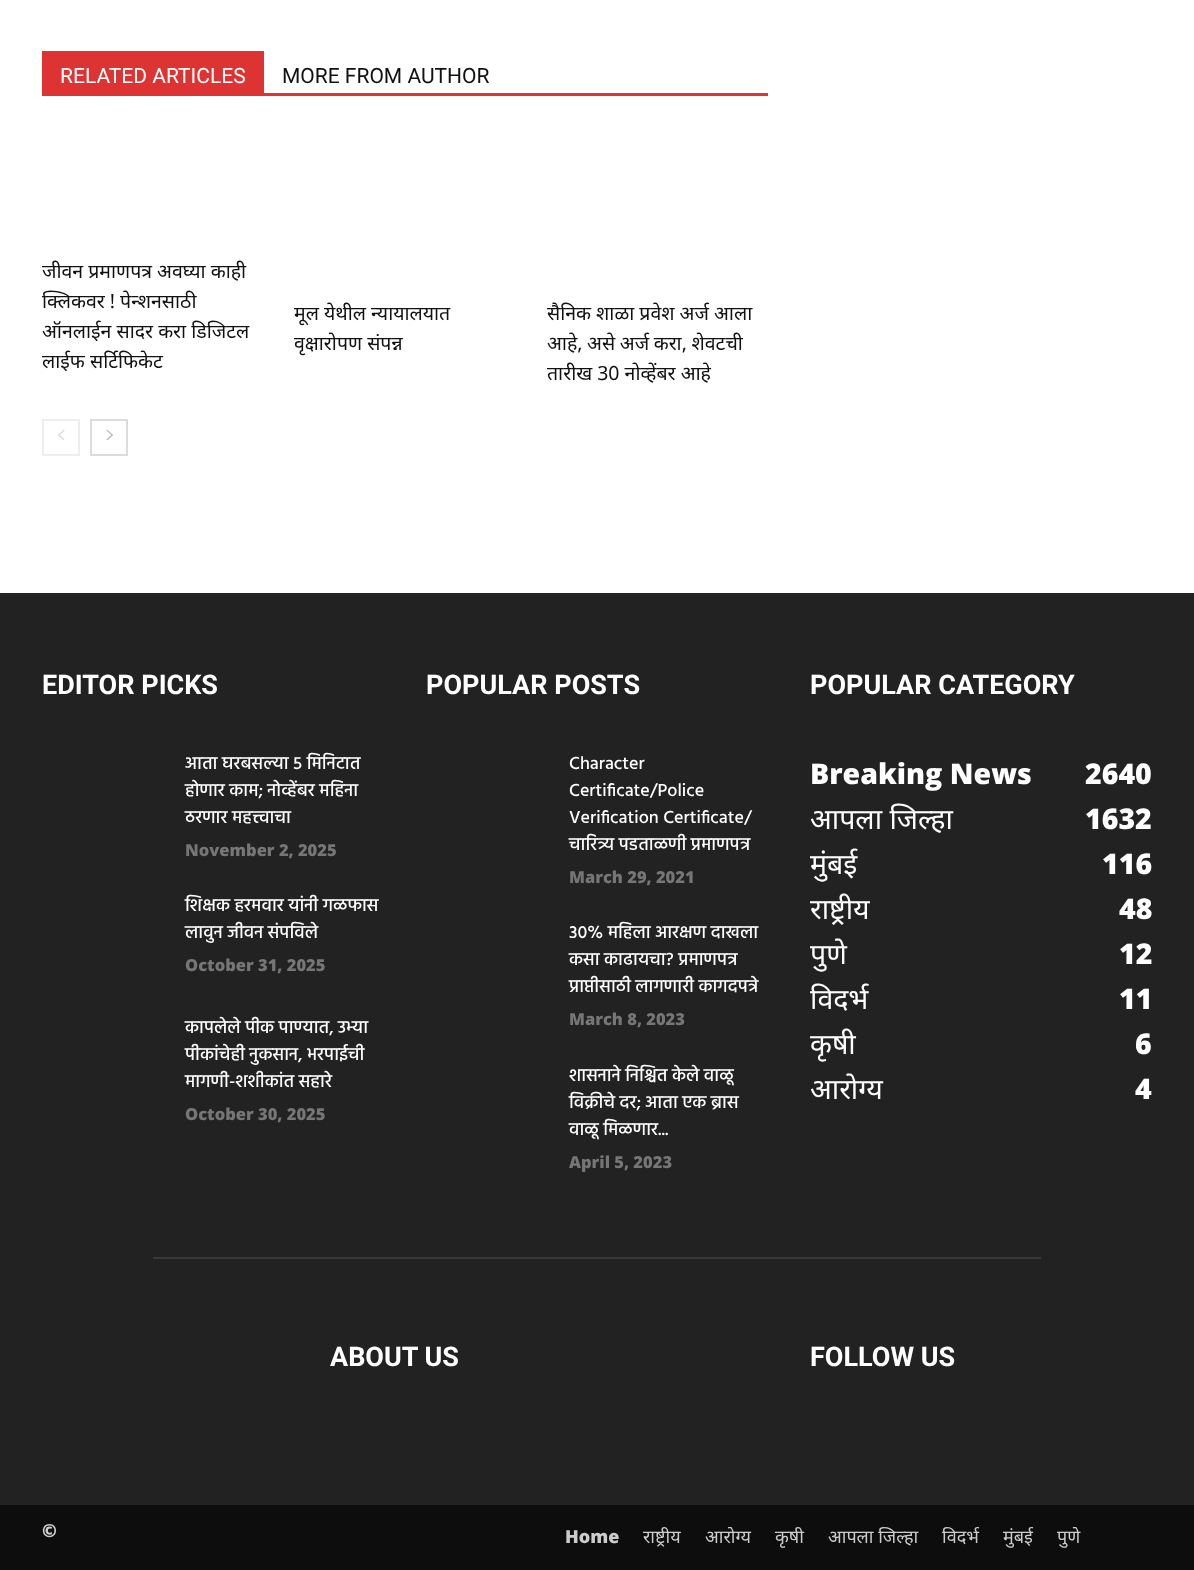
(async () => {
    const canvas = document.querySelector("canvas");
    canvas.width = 1194;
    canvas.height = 1570;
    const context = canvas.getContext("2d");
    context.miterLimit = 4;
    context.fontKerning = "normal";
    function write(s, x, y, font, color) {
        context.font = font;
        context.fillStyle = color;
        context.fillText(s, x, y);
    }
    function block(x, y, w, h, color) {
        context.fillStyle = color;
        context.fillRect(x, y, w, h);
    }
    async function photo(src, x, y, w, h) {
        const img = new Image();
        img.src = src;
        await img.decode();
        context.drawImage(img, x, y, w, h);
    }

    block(0, 0, 1194, 1570, "rgb(255, 255, 255)");
    block(42, 93, 726, 3, "rgb(221, 51, 51)");
    block(42, 51, 222, 42, "rgb(221, 51, 51)");
    write("RELATED ARTICLES", 60, 83, "21px Roboto", "rgb(255, 255, 255)");
    write("MORE FROM AUTHOR", 282, 83, "21px Roboto", "rgb(17, 17, 17)");
    context.save();
    context.beginPath();
    context.rect(42, 51, 726, 410);
    context.clip();
    write("जीवन प्रमाणपत्र अवघ्या काही", 42, 278, "19.5px Noto Sans", "rgb(17, 17, 17)");
    context.restore();
    write("क्लिकवर ! पेन्शनसाठी", 42, 308, "19.5px Noto Sans", "rgb(17, 17, 17)");
    write("ऑनलाईन सादर करा डिजिटल", 42, 338, "19.5px Noto Sans", "rgb(17, 17, 17)");
    write("लाईफ सर्टिफिकेट", 42, 368, "19.5px Noto Sans", "rgb(17, 17, 17)");
    write("मूल येथील न्यायालयात", 294, 320, "19.5px Noto Sans", "rgb(17, 17, 17)");
    write("वृक्षारोपण संपन्न", 294, 350, "19.5px Noto Sans", "rgb(17, 17, 17)");
    write("सैनिक शाळा प्रवेश अर्ज आला", 547, 320, "19.5px Noto Sans", "rgb(17, 17, 17)");
    context.wordSpacing = "-0.5px";
    write("आहे, असे अर्ज करा, शेवटची", 547, 350, "19.5px Noto Sans", "rgb(17, 17, 17)");
    context.wordSpacing = "0px";
    write("तारीख 30 नोव्हेंबर आहे", 547, 380, "19.5px Noto Sans", "rgb(17, 17, 17)");
    context.strokeStyle = "rgb(238, 238, 238)";
    context.lineWidth = 2;
    context.strokeRect(43, 420, 36, 35);
    await photo("media/1.png", 58, 429, 7, 11);
    context.strokeStyle = "rgb(220, 220, 220)";
    context.strokeRect(91, 420, 36, 35);
    await photo("media/2.png", 106, 430, 7, 11);
    block(0, 593, 1194, 912, "rgb(34, 34, 34)");
    write("EDITOR PICKS", 42, 694, "bold 27px Roboto", "rgb(255, 255, 255)");
    write("आता घरबसल्या 5 मिनिटात", 185, 769, "500 18px Hind", "rgb(255, 255, 255)");
    write("होणार काम; नोव्हेंबर महिना", 185, 796, "500 18px Hind", "rgb(255, 255, 255)");
    write("ठरणार महत्त्वाचा", 185, 823, "500 18px Hind", "rgb(255, 255, 255)");
    write("November 2, 2025", 185, 856, "800 16.5px Open Sans", "rgb(118, 118, 118)");
    write("शिक्षक हरमवार यांनी गळफास", 185, 911, "500 18px Hind", "rgb(255, 255, 255)");
    write("लावुन जीवन संपविले", 185, 938, "500 18px Hind", "rgb(255, 255, 255)");
    write("October 31, 2025", 185, 971, "800 16.5px Open Sans", "rgb(118, 118, 118)");
    write("कापलेले पीक पाण्यात, उभ्या", 185, 1033, "500 18px Hind", "rgb(255, 255, 255)");
    write("पीकांचेही नुकसान, भरपाईची", 185, 1060, "500 18px Hind", "rgb(255, 255, 255)");
    write("मागणी-शशीकांत सहारे", 185, 1087, "500 18px Hind", "rgb(255, 255, 255)");
    write("October 30, 2025", 185, 1120, "800 16.5px Open Sans", "rgb(118, 118, 118)");
    write("POPULAR POSTS", 426, 694, "bold 27px Roboto", "rgb(255, 255, 255)");
    write("Character", 569, 769, "500 18px Hind", "rgb(255, 255, 255)");
    write("Certificate/Police", 569, 796, "500 18px Hind", "rgb(255, 255, 255)");
    write("Verification Certificate/", 569, 823, "500 18px Hind", "rgb(255, 255, 255)");
    write("चारित्र्य पडताळणी प्रमाणपत्र", 569, 850, "500 18px Hind", "rgb(255, 255, 255)");
    write("March 29, 2021", 569, 883, "800 16.5px Open Sans", "rgb(118, 118, 118)");
    write("30% महिला आरक्षण दाखला", 569, 938, "500 18px Hind", "rgb(255, 255, 255)");
    write("कसा काढायचा? प्रमाणपत्र", 569, 965, "500 18px Hind", "rgb(255, 255, 255)");
    write("प्राप्तीसाठी लागणारी कागदपत्रे", 569, 992, "500 18px Hind", "rgb(255, 255, 255)");
    write("March 8, 2023", 569, 1025, "800 16.5px Open Sans", "rgb(118, 118, 118)");
    write("शासनाने निश्चित केले वाळू", 569, 1081, "500 18px Hind", "rgb(255, 255, 255)");
    write("विक्रीचे दर; आता एक ब्रास", 569, 1108, "500 18px Hind", "rgb(255, 255, 255)");
    write("वाळू मिळणार...", 569, 1135, "500 18px Hind", "rgb(255, 255, 255)");
    write("April 5, 2023", 569, 1168, "800 16.5px Open Sans", "rgb(118, 118, 118)");
    write("POPULAR CATEGORY", 810, 694, "bold 27px Roboto", "rgb(255, 255, 255)");
    write("Breaking News", 810, 784, "800 28.5px Open Sans", "rgb(255, 255, 255)");
    write("2640", 1085, 784, "800 28.5px Open Sans", "rgb(255, 255, 255)");
    write("आपला जिल्हा", 810, 829, "28.5px Noto Sans", "rgb(255, 255, 255)");
    write("1632", 1085, 829, "800 28.5px Open Sans", "rgb(255, 255, 255)");
    context.save();
    context.beginPath();
    context.rect(810, 660, 342, 452);
    context.clip();
    write("मुंबई", 810, 874, "28.5px Noto Sans", "rgb(255, 255, 255)");
    context.restore();
    write("116", 1102, 874, "800 28.5px Open Sans", "rgb(255, 255, 255)");
    write("राष्ट्रीय", 810, 919, "28.5px Noto Sans", "rgb(255, 255, 255)");
    write("48", 1119, 919, "800 28.5px Open Sans", "rgb(255, 255, 255)");
    context.save();
    context.beginPath();
    context.rect(810, 660, 342, 452);
    context.clip();
    write("पुणे", 810, 964, "28.5px Noto Sans", "rgb(255, 255, 255)");
    context.restore();
    write("12", 1119, 964, "800 28.5px Open Sans", "rgb(255, 255, 255)");
    write("विदर्भ", 810, 1009, "28.5px Noto Sans", "rgb(255, 255, 255)");
    write("11", 1119, 1009, "800 28.5px Open Sans", "rgb(255, 255, 255)");
    context.save();
    context.beginPath();
    context.rect(810, 660, 342, 452);
    context.clip();
    write("कृषी", 810, 1054, "28.5px Noto Sans", "rgb(255, 255, 255)");
    context.restore();
    write("6", 1135, 1054, "800 28.5px Open Sans", "rgb(255, 255, 255)");
    write("आरोग्य", 810, 1099, "28.5px Noto Sans", "rgb(255, 255, 255)");
    write("4", 1135, 1099, "800 28.5px Open Sans", "rgb(255, 255, 255)");
    block(153, 1257, 888, 2, "rgb(56, 56, 56)");
    write("ABOUT US", 330, 1366, "bold 27px Roboto", "rgb(255, 255, 255)");
    write("FOLLOW US", 810, 1366, "bold 27px Roboto", "rgb(255, 255, 255)");
    block(0, 1505, 1194, 65, "rgb(13, 13, 13)");
    write("©", 42, 1537, "800 18px Open Sans", "rgb(204, 204, 204)");
    write("Home", 565, 1543, "800 18px Open Sans", "rgb(204, 204, 204)");
    write("राष्ट्रीय", 643, 1543, "18px Noto Sans", "rgb(204, 204, 204)");
    write("आरोग्य", 705, 1543, "18px Noto Sans", "rgb(204, 204, 204)");
    write("कृषी", 775, 1543, "18px Noto Sans", "rgb(204, 204, 204)");
    write("आपला जिल्हा", 828, 1543, "18px Noto Sans", "rgb(204, 204, 204)");
    write("विदर्भ", 942, 1543, "18px Noto Sans", "rgb(204, 204, 204)");
    write("मुंबई", 1003, 1543, "18px Noto Sans", "rgb(204, 204, 204)");
    write("पुणे", 1057, 1543, "18px Noto Sans", "rgb(204, 204, 204)");
})();
